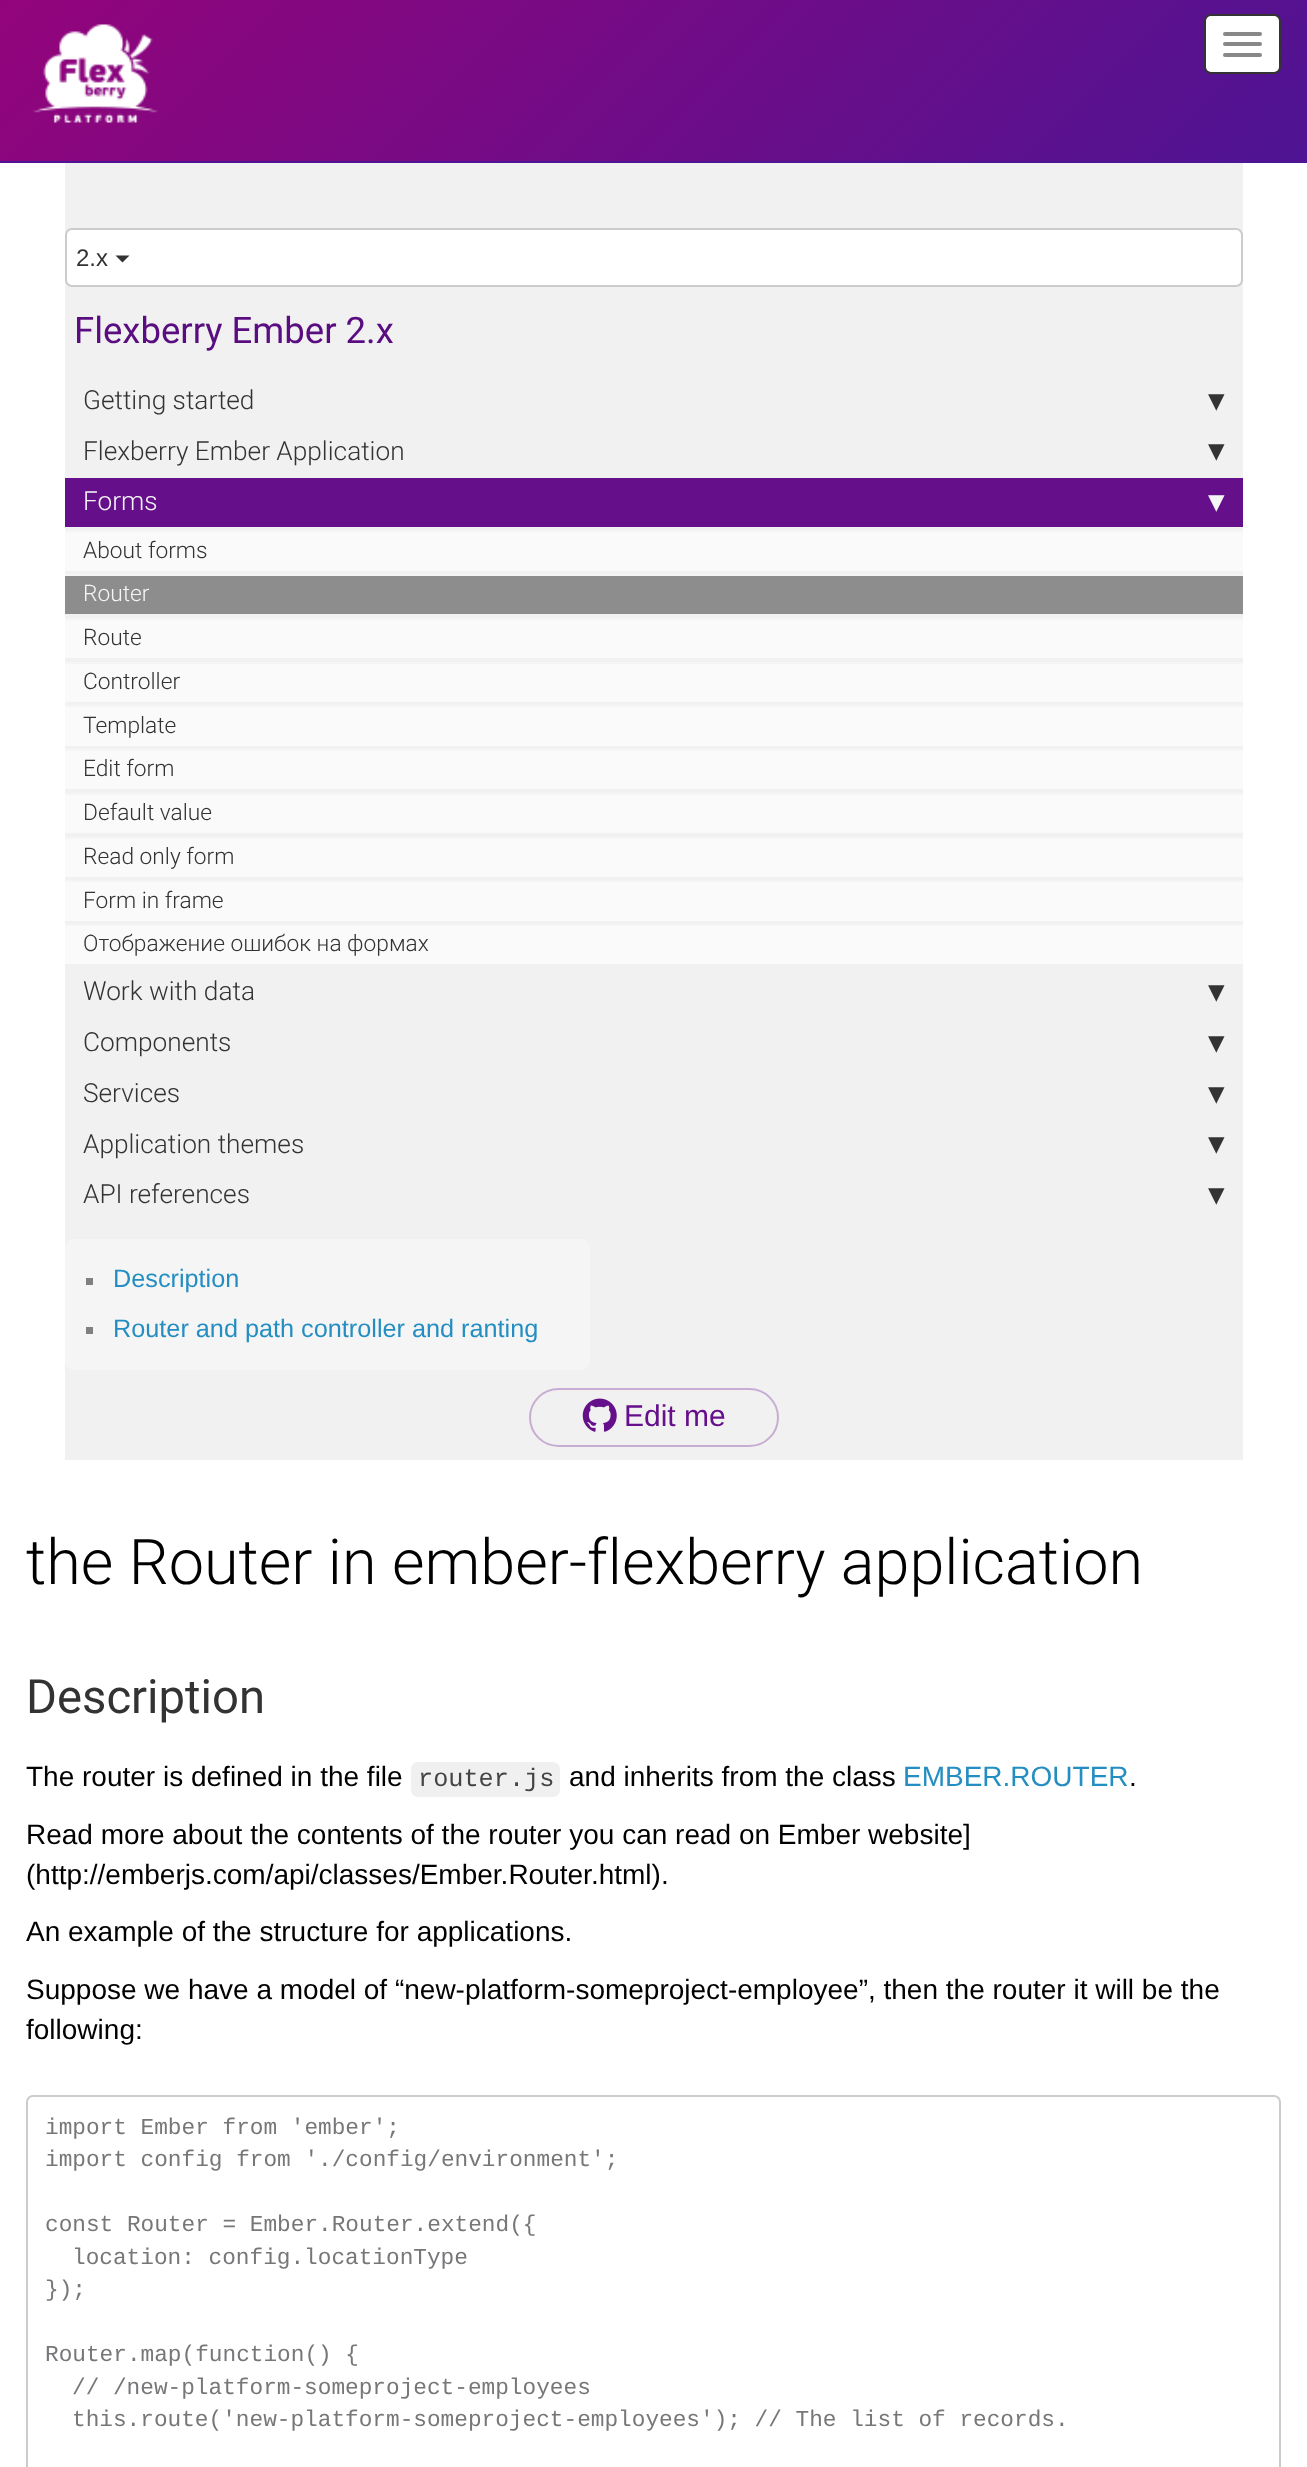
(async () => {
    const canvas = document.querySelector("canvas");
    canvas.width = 1307;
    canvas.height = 2467;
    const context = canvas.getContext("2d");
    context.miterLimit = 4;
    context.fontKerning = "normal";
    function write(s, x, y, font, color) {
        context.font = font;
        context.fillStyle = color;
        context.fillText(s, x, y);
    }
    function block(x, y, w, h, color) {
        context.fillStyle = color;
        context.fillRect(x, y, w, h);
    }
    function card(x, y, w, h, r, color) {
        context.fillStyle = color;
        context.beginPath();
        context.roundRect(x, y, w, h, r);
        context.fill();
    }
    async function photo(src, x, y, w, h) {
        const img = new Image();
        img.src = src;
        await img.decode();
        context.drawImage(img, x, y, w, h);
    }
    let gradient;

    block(0, 0, 1307, 2467, "rgb(255, 255, 255)");
    gradient = context.createLinearGradient(287, -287, 1021, 448);
    gradient.addColorStop(0, "rgb(147, 4, 123)");
    gradient.addColorStop(1, "rgb(78, 20, 147)");
    context.fillStyle = gradient;
    context.fillRect(0, 0, 1307, 161);
    block(0, 161, 1307, 2, "rgb(78, 20, 147)");
    await photo("media/1.png", 33, 24, 125, 99);
    context.fillStyle = "rgb(255, 255, 255)";
    context.beginPath();
    context.roundRect(1205, 15, 75, 58, 6);
    context.fill();
    context.strokeStyle = "rgb(51, 51, 51)";
    context.lineWidth = 2;
    context.stroke();
    card(1223, 32, 39, 4, 2, "rgb(136, 136, 136)");
    card(1223, 42, 39, 4, 2, "rgb(136, 136, 136)");
    card(1223, 53, 39, 4, 2, "rgb(136, 136, 136)");
    block(65, 163, 1178, 1297, "rgb(241, 241, 241)");
    context.fillStyle = "rgb(255, 255, 255)";
    context.beginPath();
    context.roundRect(66, 229, 1176, 57, 6);
    context.fill();
    context.strokeStyle = "rgb(204, 204, 204)";
    context.stroke();
    write("2.x", 76, 266, "24px Liberation Sans", "rgb(51, 51, 51)");
    context.beginPath();
    context.moveTo(115.5, 255.5);
    context.lineTo(129.5, 255.5);
    context.lineTo(122.5, 262.5);
    context.closePath();
    context.fill();
    write("Flexberry Ember 2.x", 74, 343, "36.5px Roboto", "rgb(90, 13, 128)");
    write("Getting started", 83, 409, "300 26.25px Roboto", "rgb(51, 51, 51)");
    write("▾", 1208, 411, "33px DejaVu Sans", "rgb(51, 51, 51)");
    write("Flexberry Ember Application", 83, 460, "300 26.25px Roboto", "rgb(51, 51, 51)");
    write("▾", 1208, 461, "33px DejaVu Sans", "rgb(51, 51, 51)");
    block(65, 478, 1178, 49, "rgb(101, 15, 139)");
    write("Forms", 83, 510, "300 26.25px Roboto", "rgb(245, 245, 245)");
    write("▾", 1208, 512, "33px DejaVu Sans", "rgb(245, 245, 245)");
    block(65, 532, 1178, 39, "rgb(250, 250, 250)");
    block(65, 530, 1178, 2, "rgb(245, 245, 245)");
    write("About forms", 83, 558, "300 22.75px Roboto", "rgb(51, 51, 51)");
    block(65, 576, 1178, 38, "rgb(141, 141, 141)");
    block(65, 574, 1178, 2, "rgb(245, 245, 245)");
    write("Router", 83, 601, "300 22.75px Roboto", "rgb(245, 245, 245)");
    block(65, 620, 1178, 38, "rgb(250, 250, 250)");
    block(65, 618, 1178, 2, "rgb(245, 245, 245)");
    write("Route", 83, 645, "300 22.75px Roboto", "rgb(51, 51, 51)");
    block(65, 664, 1178, 38, "rgb(250, 250, 250)");
    block(65, 662, 1178, 2, "rgb(245, 245, 245)");
    write("Controller", 83, 689, "300 22.75px Roboto", "rgb(51, 51, 51)");
    block(65, 707, 1178, 39, "rgb(250, 250, 250)");
    block(65, 705, 1178, 2, "rgb(245, 245, 245)");
    write("Template", 83, 733, "300 22.75px Roboto", "rgb(51, 51, 51)");
    block(65, 751, 1178, 38, "rgb(250, 250, 250)");
    block(65, 749, 1178, 2, "rgb(245, 245, 245)");
    write("Edit form", 83, 776, "300 22.75px Roboto", "rgb(51, 51, 51)");
    block(65, 795, 1178, 38, "rgb(250, 250, 250)");
    block(65, 793, 1178, 2, "rgb(245, 245, 245)");
    write("Default value", 83, 820, "300 22.75px Roboto", "rgb(51, 51, 51)");
    block(65, 839, 1178, 38, "rgb(250, 250, 250)");
    block(65, 837, 1178, 2, "rgb(245, 245, 245)");
    write("Read only form", 83, 864, "300 22.75px Roboto", "rgb(51, 51, 51)");
    block(65, 882, 1178, 39, "rgb(250, 250, 250)");
    block(65, 880, 1178, 2, "rgb(245, 245, 245)");
    write("Form in frame", 83, 908, "300 22.75px Roboto", "rgb(51, 51, 51)");
    block(65, 926, 1178, 38, "rgb(250, 250, 250)");
    block(65, 924, 1178, 2, "rgb(245, 245, 245)");
    write("Отображение ошибок на формах", 83, 951, "300 22.75px Roboto", "rgb(51, 51, 51)");
    write("Work with data", 83, 1000, "300 26.25px Roboto", "rgb(51, 51, 51)");
    write("▾", 1208, 1002, "33px DejaVu Sans", "rgb(51, 51, 51)");
    write("Components", 83, 1051, "300 26.25px Roboto", "rgb(51, 51, 51)");
    write("▾", 1208, 1053, "33px DejaVu Sans", "rgb(51, 51, 51)");
    write("Services", 83, 1102, "300 26.25px Roboto", "rgb(51, 51, 51)");
    write("▾", 1208, 1104, "33px DejaVu Sans", "rgb(51, 51, 51)");
    write("Application themes", 83, 1153, "300 26.25px Roboto", "rgb(51, 51, 51)");
    write("▾", 1208, 1154, "33px DejaVu Sans", "rgb(51, 51, 51)");
    write("API references", 83, 1203, "300 26.25px Roboto", "rgb(51, 51, 51)");
    write("▾", 1208, 1205, "33px DejaVu Sans", "rgb(51, 51, 51)");
    card(65, 1239, 525, 131, 9, "rgb(245, 245, 245)");
    block(86, 1278, 7, 7, "rgb(128, 128, 128)");
    write("Description", 113, 1287, "25.25px Liberation Sans", "rgb(36, 142, 194)");
    block(86, 1327, 7, 7, "rgb(128, 128, 128)");
    write("Router and path controller and ranting", 113, 1337, "25.25px Liberation Sans", "rgb(36, 142, 194)");
    context.beginPath();
    context.roundRect(530, 1389, 248, 57, 28.5);
    context.strokeStyle = "rgb(199, 173, 210)";
    context.stroke();
    await photo("media/2.png", 582, 1398, 35, 34);
    write("Edit me", 624, 1426, "30px Liberation Sans", "rgb(101, 15, 139)");
    write("the Router in ember-flexberry application", 26, 1584, "300 63px Roboto", "rgb(0, 0, 0)");
    write("Description", 26, 1713, "47.25px Roboto", "rgb(51, 51, 51)");
    write("The router is defined in the file", 26, 1786, "28px Liberation Sans", "rgb(0, 0, 0)");
    card(411, 1762, 149, 35, 7, "rgb(240, 240, 240)");
    write("router.js", 418, 1786, "25.25px Liberation Mono", "rgb(68, 68, 68)");
    write("and inherits from the class", 569, 1786, "28px Liberation Sans", "rgb(0, 0, 0)");
    write("EMBER.ROUTER", 903, 1786, "28px Liberation Sans", "rgb(36, 142, 194)");
    write(".", 1129, 1786, "28px Liberation Sans", "rgb(0, 0, 0)");
    write("Read more about the contents of the router you can read on Ember website]", 26, 1844, "28px Liberation Sans", "rgb(0, 0, 0)");
    write("(http://emberjs.com/api/classes/Ember.Router.html).", 26, 1884, "28px Liberation Sans", "rgb(0, 0, 0)");
    write("An example of the structure for applications.", 26, 1941, "28px Liberation Sans", "rgb(0, 0, 0)");
    write("Suppose we have a model of “new-platform-someproject-employee”, then the router it will be the", 26, 1999, "28px Liberation Sans", "rgb(0, 0, 0)");
    write("following:", 26, 2039, "28px Liberation Sans", "rgb(0, 0, 0)");
    context.beginPath();
    context.roundRect(27, 2096, 1253, 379, 6);
    context.strokeStyle = "rgb(204, 204, 204)";
    context.stroke();
    write("import Ember from 'ember';", 45, 2134, "22.75px Liberation Mono", "rgb(119, 119, 122)");
    write("import config from './config/environment';", 45, 2166, "22.75px Liberation Mono", "rgb(119, 119, 122)");
    write("const Router = Ember.Router.extend({", 45, 2231, "22.75px Liberation Mono", "rgb(119, 119, 122)");
    write("location: config.locationType", 72, 2264, "22.75px Liberation Mono", "rgb(119, 119, 122)");
    write("});", 45, 2296, "22.75px Liberation Mono", "rgb(119, 119, 122)");
    write("Router.map(function() {", 45, 2361, "22.75px Liberation Mono", "rgb(119, 119, 122)");
    write("// /new-platform-someproject-employees", 72, 2394, "22.75px Liberation Mono", "rgb(119, 119, 122)");
    write("this.route('new-platform-someproject-employees'); // The list of records.", 72, 2426, "22.75px Liberation Mono", "rgb(119, 119, 122)");
})();
